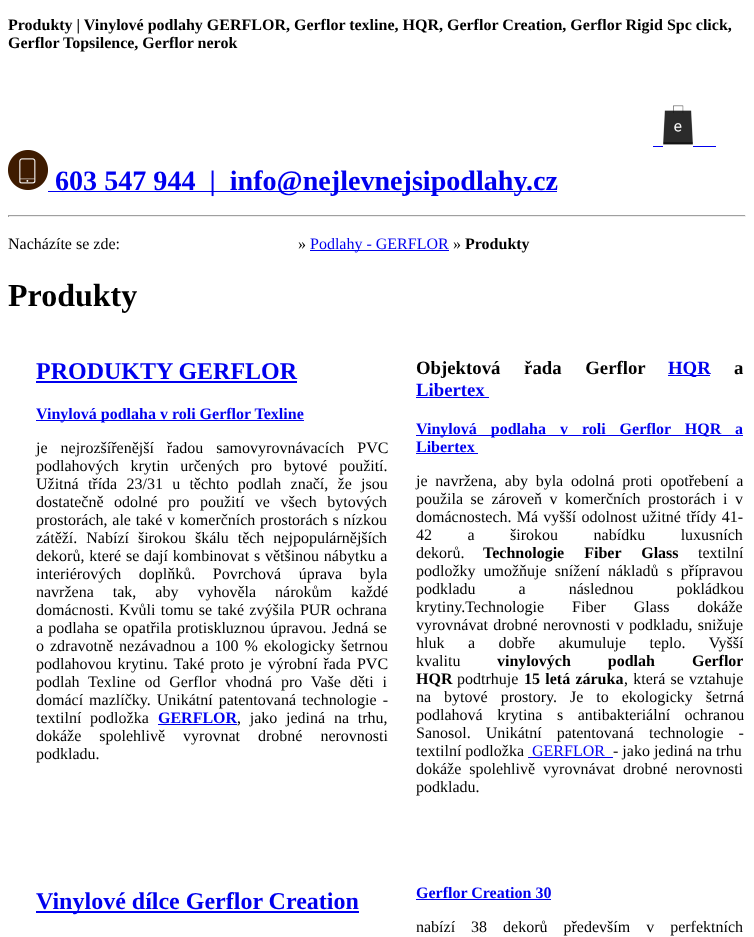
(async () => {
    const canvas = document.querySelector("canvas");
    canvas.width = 754;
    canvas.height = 937;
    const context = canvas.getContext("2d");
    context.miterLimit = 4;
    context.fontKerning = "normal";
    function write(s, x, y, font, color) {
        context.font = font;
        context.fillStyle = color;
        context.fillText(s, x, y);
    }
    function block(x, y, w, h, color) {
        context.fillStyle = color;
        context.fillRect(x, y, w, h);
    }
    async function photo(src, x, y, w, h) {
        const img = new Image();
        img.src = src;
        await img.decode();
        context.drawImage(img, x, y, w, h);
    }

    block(0, 0, 754, 937, "rgb(255, 255, 255)");
    write("Produkty | Vinylové podlahy GERFLOR, Gerflor texline, HQR, Gerflor Creation, Gerflor Rigid Spc click,", 8, 30, "bold 16px Liberation Serif", "rgb(0, 0, 0)");
    write("Gerflor Topsilence, Gerflor nerok", 8, 48, "bold 16px Liberation Serif", "rgb(0, 0, 0)");
    await photo("media/1.png", 663, 105, 30, 40);
    await photo("media/2.png", 8, 150, 40, 40);
    block(48, 191, 509, 1, "rgb(0, 0, 238)");
    write("603 547 944  |  info@nejlevnejsipodlahy.cz", 55, 190, "bold 28.1px Liberation Serif", "rgb(0, 0, 238)");
    block(653, 146, 10, 1, "rgb(0, 0, 238)");
    block(693, 146, 23, 1, "rgb(0, 0, 238)");
    block(8, 215, 738, 1, "rgb(159, 159, 159)");
    block(745, 215, 1, 2, "rgb(238, 238, 238)");
    block(8, 216, 738, 1, "rgb(238, 238, 238)");
    block(8, 215, 1, 2, "rgb(159, 159, 159)");
    write("Nacházíte se zde:", 8, 249, "16px Liberation Serif", "rgb(0, 0, 0)");
    write("»", 298, 249, "16px Liberation Serif", "rgb(0, 0, 0)");
    block(310, 250, 139, 1, "rgb(0, 0, 238)");
    write("Podlahy - GERFLOR", 310, 249, "16px Liberation Serif", "rgb(0, 0, 238)");
    write("»", 453, 249, "16px Liberation Serif", "rgb(0, 0, 0)");
    write("Produkty", 465, 249, "bold 16px Liberation Serif", "rgb(0, 0, 0)");
    write("Produkty", 8, 306, "bold 32px Liberation Serif", "rgb(0, 0, 0)");
    write("PRODUKTY GERFLOR", 36, 379, "bold 24px Liberation Serif", "rgb(0, 0, 238)");
    block(36, 381, 261, 2, "rgb(0, 0, 238)");
    block(36, 420, 268, 1, "rgb(0, 0, 238)");
    write("Vinylová podlaha v roli Gerflor Texline", 36, 419, "bold 16px Liberation Serif", "rgb(0, 0, 238)");
    context.wordSpacing = "9px";
    write("je nejrozšířenější řadou samovyrovnávacích PVC", 36, 453, "16px Liberation Serif", "rgb(0, 0, 0)");
    context.wordSpacing = "7.75px";
    write("podlahových krytin určených pro bytové použití.", 36, 471, "16px Liberation Serif", "rgb(0, 0, 0)");
    context.wordSpacing = "5.25px";
    write("Užitná třída 23/31 u těchto podlah značí, že jsou", 36, 489, "16px Liberation Serif", "rgb(0, 0, 0)");
    context.wordSpacing = "6.5px";
    write("dostatečně odolné pro použití ve všech bytových", 36, 507, "16px Liberation Serif", "rgb(0, 0, 0)");
    context.wordSpacing = "0.75px";
    write("prostorách, ale také v komerčních prostorách s nízkou", 36, 525, "16px Liberation Serif", "rgb(0, 0, 0)");
    context.wordSpacing = "5px";
    write("zátěží. Nabízí širokou škálu těch nejpopulárnějších", 36, 543, "16px Liberation Serif", "rgb(0, 0, 0)");
    context.wordSpacing = "0.75px";
    write("dekorů, které se dají kombinovat s většinou nábytku a", 36, 561, "16px Liberation Serif", "rgb(0, 0, 0)");
    context.wordSpacing = "13.5px";
    write("interiérových doplňků. Povrchová úprava byla", 36, 579, "16px Liberation Serif", "rgb(0, 0, 0)");
    context.wordSpacing = "15px";
    write("navržena tak, aby vyhověla nárokům každé", 36, 597, "16px Liberation Serif", "rgb(0, 0, 0)");
    context.wordSpacing = "1.25px";
    write("domácnosti. Kvůli tomu se také zvýšila PUR ochrana", 36, 615, "16px Liberation Serif", "rgb(0, 0, 0)");
    write("a podlaha se opatřila protiskluznou úpravou. Jedná se", 36, 633, "16px Liberation Serif", "rgb(0, 0, 0)");
    context.wordSpacing = "2px";
    write("o zdravotně nezávadnou a 100 % ekologicky šetrnou", 36, 651, "16px Liberation Serif", "rgb(0, 0, 0)");
    write("podlahovou krytinu. Také proto je výrobní řada PVC", 36, 669, "16px Liberation Serif", "rgb(0, 0, 0)");
    context.wordSpacing = "4.75px";
    write("podlah Texline od Gerflor vhodná pro Vaše děti i", 36, 687, "16px Liberation Serif", "rgb(0, 0, 0)");
    context.wordSpacing = "2px";
    write("domácí mazlíčky. Unikátní patentovaná technologie -", 36, 705, "16px Liberation Serif", "rgb(0, 0, 0)");
    context.wordSpacing = "4.75px";
    write("textilní podložka", 36, 723, "16px Liberation Serif", "rgb(0, 0, 0)");
    context.wordSpacing = "0px";
    write("GERFLOR", 158, 723, "bold 16px Liberation Serif", "rgb(0, 0, 238)");
    context.wordSpacing = "4.75px";
    write(", jako jediná na trhu,", 237, 723, "16px Liberation Serif", "rgb(0, 0, 0)");
    block(158, 724, 79, 1, "rgb(0, 0, 238)");
    context.wordSpacing = "14px";
    write("dokáže spolehlivě vyrovnat drobné nerovnosti", 36, 741, "16px Liberation Serif", "rgb(0, 0, 0)");
    context.wordSpacing = "0px";
    write("podkladu.", 36, 759, "16px Liberation Serif", "rgb(0, 0, 0)");
    context.wordSpacing = "19px";
    write("Objektová řada Gerflor", 416, 374, "bold 18.75px Liberation Serif", "rgb(0, 0, 0)");
    block(668, 375, 42, 1, "rgb(0, 0, 238)");
    context.wordSpacing = "0px";
    write("HQR", 668, 374, "bold 18.75px Liberation Serif", "rgb(0, 0, 238)");
    write("a", 734, 374, "bold 18.75px Liberation Serif", "rgb(0, 0, 0)");
    write("Libertex", 416, 396, "bold 18.75px Liberation Serif", "rgb(0, 0, 238)");
    block(416, 397, 73, 1, "rgb(0, 0, 238)");
    block(416, 435, 305, 1, "rgb(0, 0, 238)");
    context.wordSpacing = "10px";
    write("Vinylová podlaha v roli Gerflor HQR", 416, 434, "bold 16px Liberation Serif", "rgb(0, 0, 238)");
    context.wordSpacing = "0px";
    write("a", 735, 434, "bold 16px Liberation Serif", "rgb(0, 0, 238)");
    block(721, 435, 22, 1, "rgb(0, 0, 238)");
    write("Libertex", 416, 452, "bold 16px Liberation Serif", "rgb(0, 0, 238)");
    block(416, 453, 62, 1, "rgb(0, 0, 238)");
    context.wordSpacing = "3.75px";
    write("je navržena, aby byla odolná proti opotřebení a", 416, 486, "16px Liberation Serif", "rgb(0, 0, 0)");
    context.wordSpacing = "3.5px";
    write("použila se zároveň v komerčních prostorách i v", 416, 504, "16px Liberation Serif", "rgb(0, 0, 0)");
    context.wordSpacing = "1.25px";
    write("domácnostech. Má vyšší odolnost užitné třídy 41-", 416, 522, "16px Liberation Serif", "rgb(0, 0, 0)");
    context.wordSpacing = "31.5px";
    write("42 a širokou nabídku luxusních", 416, 540, "16px Liberation Serif", "rgb(0, 0, 0)");
    context.wordSpacing = "0px";
    write("dekorů.", 416, 558, "16px Liberation Serif", "rgb(0, 0, 0)");
    context.wordSpacing = "16px";
    write("Technologie Fiber Glass", 483, 558, "bold 16px Liberation Serif", "rgb(0, 0, 0)");
    context.wordSpacing = "0px";
    write("textilní", 698, 558, "16px Liberation Serif", "rgb(0, 0, 0)");
    context.wordSpacing = "4px";
    write("podložky umožňuje snížení nákladů s přípravou", 416, 576, "16px Liberation Serif", "rgb(0, 0, 0)");
    context.wordSpacing = "39px";
    write("podkladu a následnou pokládkou", 416, 594, "16px Liberation Serif", "rgb(0, 0, 0)");
    context.wordSpacing = "24px";
    write("krytiny.Technologie Fiber Glass dokáže", 416, 612, "16px Liberation Serif", "rgb(0, 0, 0)");
    context.wordSpacing = "1.25px";
    write("vyrovnávat drobné nerovnosti v podkladu, snižuje", 416, 630, "16px Liberation Serif", "rgb(0, 0, 0)");
    context.wordSpacing = "19.5px";
    write("hluk a dobře akumuluje teplo. Vyšší", 416, 648, "16px Liberation Serif", "rgb(0, 0, 0)");
    context.wordSpacing = "0px";
    write("kvalitu", 416, 666, "16px Liberation Serif", "rgb(0, 0, 0)");
    context.wordSpacing = "33px";
    write("vinylových podlah Gerflor", 497, 666, "bold 16px Liberation Serif", "rgb(0, 0, 0)");
    context.wordSpacing = "0px";
    write("HQR", 416, 684, "bold 16px Liberation Serif", "rgb(0, 0, 0)");
    write("podtrhuje", 457, 684, "16px Liberation Serif", "rgb(0, 0, 0)");
    context.wordSpacing = "1.25px";
    write("15 letá záruka", 524, 684, "bold 16px Liberation Serif", "rgb(0, 0, 0)");
    write(", která se vztahuje", 624, 684, "16px Liberation Serif", "rgb(0, 0, 0)");
    context.wordSpacing = "9px";
    write("na bytové prostory. Je to ekologicky šetrná", 416, 702, "16px Liberation Serif", "rgb(0, 0, 0)");
    context.wordSpacing = "10.5px";
    write("podlahová krytina s antibakteriální ochranou", 416, 720, "16px Liberation Serif", "rgb(0, 0, 0)");
    context.wordSpacing = "11px";
    write("Sanosol. Unikátní patentovaná technologie -", 416, 738, "16px Liberation Serif", "rgb(0, 0, 0)");
    context.wordSpacing = "0px";
    write("textilní podložka", 416, 756, "16px Liberation Serif", "rgb(0, 0, 0)");
    write("GERFLOR", 532, 756, "16px Liberation Serif", "rgb(0, 0, 238)");
    write("- jako jediná na trhu", 613, 756, "16px Liberation Serif", "rgb(0, 0, 0)");
    block(528, 757, 85, 1, "rgb(0, 0, 238)");
    context.wordSpacing = "4px";
    write("dokáže spolehlivě vyrovnávat drobné nerovnosti", 416, 774, "16px Liberation Serif", "rgb(0, 0, 0)");
    context.wordSpacing = "0px";
    write("podkladu.", 416, 792, "16px Liberation Serif", "rgb(0, 0, 0)");
    block(36, 911, 323, 2, "rgb(0, 0, 238)");
    write("Vinylové dílce Gerflor Creation", 36, 909, "bold 24px Liberation Serif", "rgb(0, 0, 238)");
    write("Gerflor Creation 30", 416, 898, "bold 16px Liberation Serif", "rgb(0, 0, 238)");
    block(416, 899, 135, 1, "rgb(0, 0, 238)");
    context.wordSpacing = "12px";
    write("nabízí 38 dekorů především v perfektních", 416, 932, "16px Liberation Serif", "rgb(0, 0, 0)");
})();
